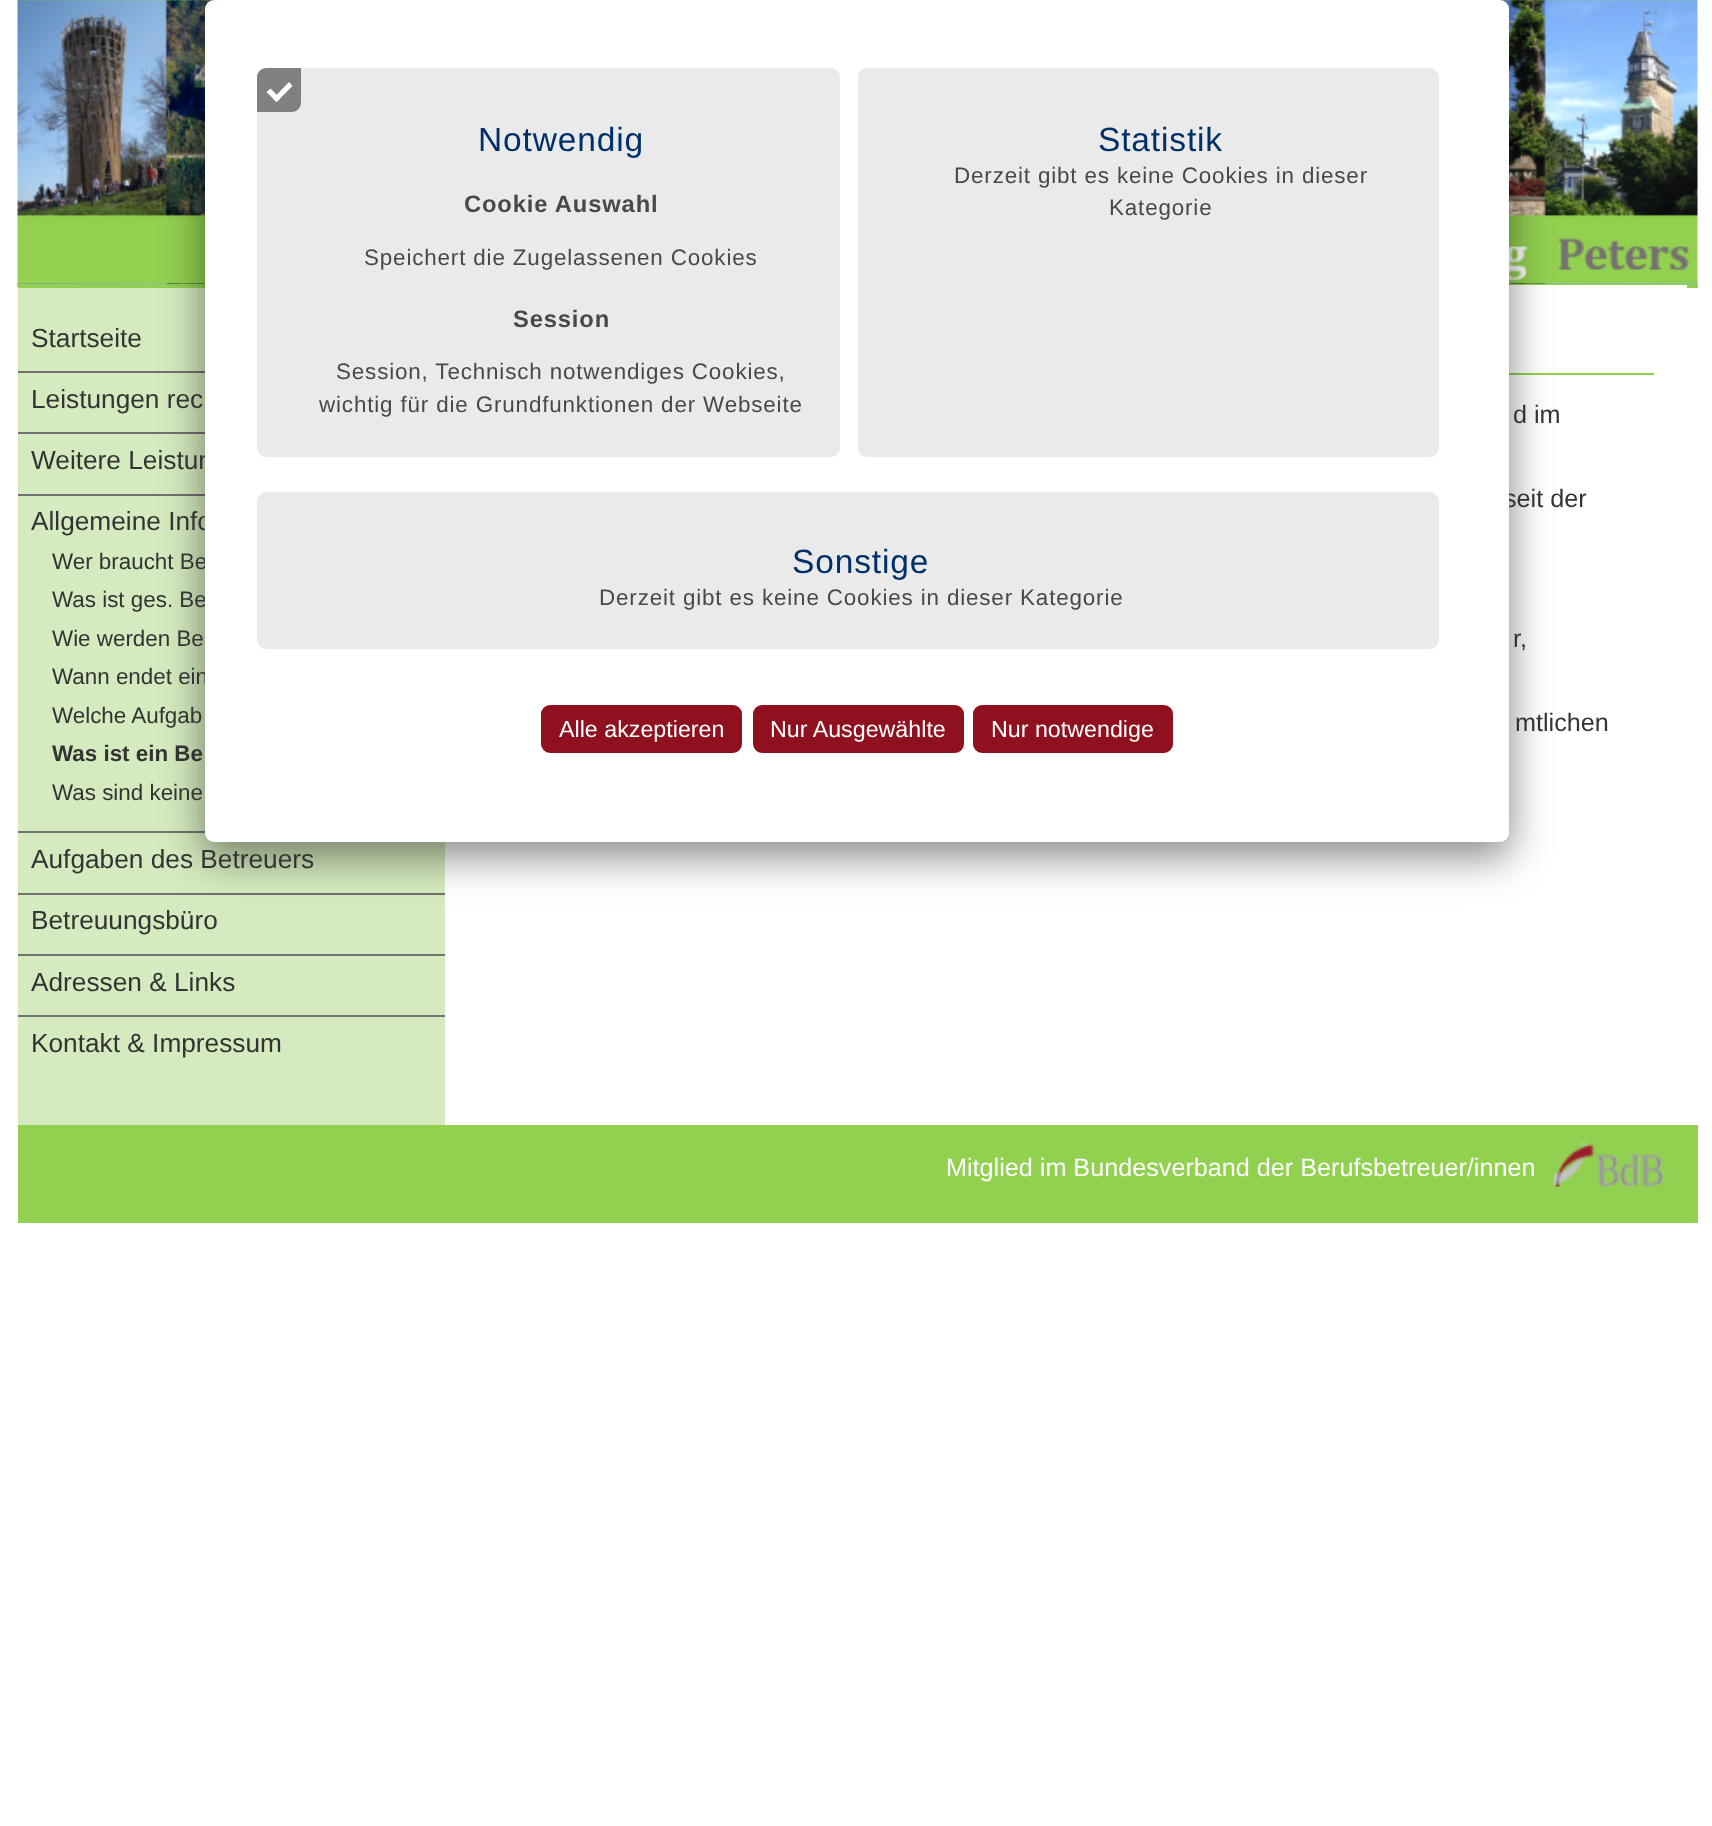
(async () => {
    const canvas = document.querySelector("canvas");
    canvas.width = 1712;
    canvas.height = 1826;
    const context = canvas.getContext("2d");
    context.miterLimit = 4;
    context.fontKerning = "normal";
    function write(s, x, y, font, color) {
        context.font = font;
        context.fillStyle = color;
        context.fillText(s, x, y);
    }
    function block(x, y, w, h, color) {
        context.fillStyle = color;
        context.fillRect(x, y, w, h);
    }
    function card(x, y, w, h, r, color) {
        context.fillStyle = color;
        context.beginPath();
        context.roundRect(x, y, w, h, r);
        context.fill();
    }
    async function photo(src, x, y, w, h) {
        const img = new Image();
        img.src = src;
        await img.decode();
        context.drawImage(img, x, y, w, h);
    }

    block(0, 0, 1712, 1826, "rgb(255, 255, 255)");
    await photo("media/1.png", 17, 0, 1681, 287);
    block(18, 284, 1680, 4, "rgb(146, 208, 80)");
    block(18, 288, 427, 837, "rgb(213, 234, 190)");
    block(18, 371, 187, 2, "rgb(118, 113, 113)");
    block(18, 432, 187, 2, "rgb(118, 113, 113)");
    block(18, 494, 187, 2, "rgb(118, 113, 113)");
    block(18, 831, 187, 2, "rgb(118, 113, 113)");
    block(18, 893, 427, 2, "rgb(118, 113, 113)");
    block(445, 285, 1242, 3, "rgb(255, 255, 255)");
    block(1509, 373, 145, 2, "rgb(146, 208, 80)");
    context.fillStyle = "rgba(0, 0, 0, 0.3)";
    context.filter = "blur(22px)";
    context.beginPath();
    context.roundRect(205, 18, 1304, 841, 9);
    context.fill();
    context.filter = "none";
    context.fillStyle = "rgba(0, 0, 0, 0.22)";
    context.filter = "blur(17.5px)";
    context.beginPath();
    context.roundRect(205, 9, 1304, 842, 9);
    context.fill();
    context.filter = "none";
    write("Weitere Leistun", 31, 469, "26.25px Liberation Sans", "rgb(51, 51, 51)");
    write("Allgemeine Info", 31, 530, "26.25px Liberation Sans", "rgb(51, 51, 51)");
    write("Wer braucht Be", 52, 569, "22.4px Liberation Sans", "rgb(51, 51, 51)");
    write("Was ist ges. Be", 52, 607, "22.4px Liberation Sans", "rgb(51, 51, 51)");
    write("Wann endet ein", 52, 684, "22.4px Liberation Sans", "rgb(51, 51, 51)");
    write("seit der", 1504, 507, "25.2px Liberation Sans", "rgb(51, 51, 51)");
    card(205, 0, 1304, 842, 9, "rgb(255, 255, 255)");
    card(257, 68, 583, 389, 9, "rgb(234, 234, 234)");
    context.fillStyle = "rgb(128, 128, 128)";
    context.beginPath();
    context.roundRect(257, 68, 44, 44, [9, 0, 9, 0]);
    context.fill();
    context.fillStyle = "rgb(255, 255, 255)";
    context.beginPath();
    context.moveTo(289, 82);
    context.lineTo(292.5, 86);
    context.lineTo(276.5, 102);
    context.lineTo(273, 98.5);
    context.closePath();
    context.fill();
    context.beginPath();
    context.moveTo(270.5, 88.5);
    context.lineTo(280.5, 98.5);
    context.lineTo(276.5, 102);
    context.lineTo(266.5, 92);
    context.closePath();
    context.fill();
    context.letterSpacing = "0.85px";
    write("Notwendig", 478, 151, "33.5px Liberation Sans", "rgb(0, 48, 104)");
    write("Cookie Auswahl", 464, 212, "bold 23.75px Liberation Sans", "rgb(72, 72, 72)");
    write("Speichert die Zugelassenen Cookies", 364, 265, "22.4px Liberation Sans", "rgb(72, 72, 72)");
    write("Session", 513, 327, "bold 23.75px Liberation Sans", "rgb(72, 72, 72)");
    write("Session, Technisch notwendiges Cookies,", 336, 379, "22.4px Liberation Sans", "rgb(72, 72, 72)");
    write("wichtig für die Grundfunktionen der Webseite", 319, 412, "22.4px Liberation Sans", "rgb(72, 72, 72)");
    card(858, 68, 581, 389, 9, "rgb(234, 234, 234)");
    write("Statistik", 1098, 151, "33.5px Liberation Sans", "rgb(0, 48, 104)");
    write("Derzeit gibt es keine Cookies in dieser", 954, 183, "22.4px Liberation Sans", "rgb(72, 72, 72)");
    write("Kategorie", 1109, 215, "22.4px Liberation Sans", "rgb(72, 72, 72)");
    card(257, 492, 1182, 157, 9, "rgb(234, 234, 234)");
    write("Sonstige", 792, 573, "33.5px Liberation Sans", "rgb(0, 48, 104)");
    write("Derzeit gibt es keine Cookies in dieser Kategorie", 599, 605, "22.4px Liberation Sans", "rgb(72, 72, 72)");
    context.fillStyle = "rgb(143, 16, 30)";
    context.beginPath();
    context.roundRect(543, 707, 197, 44, 7);
    context.fill();
    context.strokeStyle = "rgb(143, 16, 30)";
    context.lineWidth = 4;
    context.stroke();
    context.letterSpacing = "0px";
    write("Alle akzeptieren", 559, 737, "23.25px Liberation Sans", "rgb(255, 255, 255)");
    context.fillStyle = "rgb(143, 16, 30)";
    context.beginPath();
    context.roundRect(755, 707, 207, 44, 7);
    context.fill();
    context.stroke();
    write("Nur Ausgewählte", 770, 737, "23.25px Liberation Sans", "rgb(255, 255, 255)");
    context.fillStyle = "rgb(143, 16, 30)";
    context.beginPath();
    context.roundRect(975, 707, 196, 44, 7);
    context.fill();
    context.stroke();
    write("Nur notwendige", 991, 737, "23.25px Liberation Sans", "rgb(255, 255, 255)");
    write("Startseite", 31, 347, "26.25px Liberation Sans", "rgb(51, 51, 51)");
    write("Leistungen rec", 31, 408, "26.25px Liberation Sans", "rgb(51, 51, 51)");
    write("Wie werden Be", 52, 646, "22.4px Liberation Sans", "rgb(51, 51, 51)");
    write("Welche Aufgab", 52, 723, "22.4px Liberation Sans", "rgb(51, 51, 51)");
    write("Was ist ein Be", 52, 761, "bold 22.4px Liberation Sans", "rgb(51, 51, 51)");
    write("Was sind keine", 52, 800, "22.4px Liberation Sans", "rgb(51, 51, 51)");
    write("Aufgaben des Betreuers", 31, 868, "26.25px Liberation Sans", "rgb(51, 51, 51)");
    write("Betreuungsbüro", 31, 929, "26.25px Liberation Sans", "rgb(51, 51, 51)");
    block(18, 954, 427, 2, "rgb(118, 113, 113)");
    write("Adressen & Links", 31, 991, "26.25px Liberation Sans", "rgb(51, 51, 51)");
    block(18, 1015, 427, 2, "rgb(118, 113, 113)");
    write("Kontakt & Impressum", 31, 1052, "26.25px Liberation Sans", "rgb(51, 51, 51)");
    write("d im", 1513, 423, "25.2px Liberation Sans", "rgb(51, 51, 51)");
    write("r,", 1513, 647, "25.2px Liberation Sans", "rgb(51, 51, 51)");
    write("mtlichen", 1515, 731, "25.2px Liberation Sans", "rgb(51, 51, 51)");
    block(18, 1125, 1680, 98, "rgb(146, 208, 80)");
    write("Mitglied im Bundesverband der Berufsbetreuer/innen", 946, 1176, "25.2px Liberation Sans", "rgb(255, 255, 255)");
    await photo("media/2.png", 1554, 1142, 109, 45);
})();
